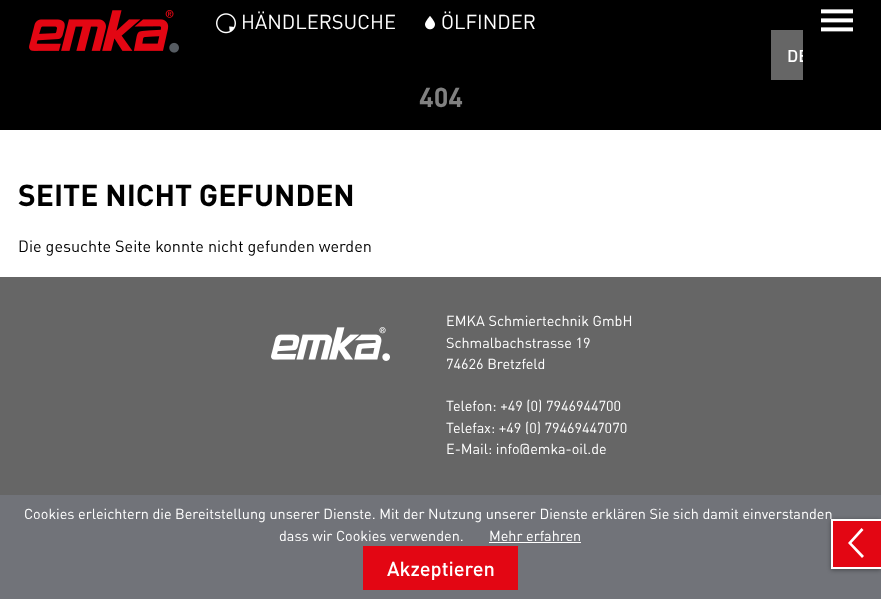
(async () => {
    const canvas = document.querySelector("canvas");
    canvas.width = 881;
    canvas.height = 599;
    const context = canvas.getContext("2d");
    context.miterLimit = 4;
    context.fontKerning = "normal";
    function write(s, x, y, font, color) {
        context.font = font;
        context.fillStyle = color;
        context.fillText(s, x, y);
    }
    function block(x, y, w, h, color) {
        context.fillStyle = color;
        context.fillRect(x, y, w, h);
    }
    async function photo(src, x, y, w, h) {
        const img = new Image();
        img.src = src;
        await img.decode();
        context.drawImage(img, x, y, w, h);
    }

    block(0, 0, 881, 599, "rgb(0, 0, 0)");
    await photo("media/1.png", 29, 10, 150, 43);
    await photo("media/2.png", 216, 13, 20, 21);
    write("HÄNDLERSUCHE", 241, 29, "20px DIN", "rgb(255, 255, 255)");
    await photo("media/3.png", 425, 16, 10, 14);
    write("ÖLFINDER", 441, 29, "20px DIN", "rgb(255, 255, 255)");
    block(771, 30, 32, 50, "rgb(102, 102, 102)");
    context.save();
    context.beginPath();
    context.rect(771, 30, 32, 50);
    context.clip();
    write("DE", 787, 62, "500 17px DIN", "rgb(255, 255, 255)");
    context.restore();
    await photo("media/4.png", 821, 9, 32, 23);
    write("404", 419, 107, "bold 27px DIN", "rgb(128, 128, 128)");
    block(0, 130, 881, 147, "rgb(255, 255, 255)");
    write("SEITE NICHT GEFUNDEN", 18, 206, "bold 30px DIN", "rgb(0, 0, 0)");
    write("Die gesuchte Seite konnte nicht gefunden werden", 18, 252, "16.2px DIN", "rgb(0, 0, 0)");
    block(0, 277, 881, 218, "rgb(102, 102, 102)");
    await photo("media/5.png", 271, 327, 119, 34);
    write("EMKA Schmiertechnik GmbH", 446, 326, "14.4px DIN", "rgb(255, 255, 255)");
    write("Schmalbachstrasse 19", 446, 348, "14.4px DIN", "rgb(255, 255, 255)");
    write("74626 Bretzfeld", 446, 369, "14.4px DIN", "rgb(255, 255, 255)");
    write("Telefon: +49 (0) 7946944700", 446, 411, "14.4px DIN", "rgb(255, 255, 255)");
    write("Telefax: +49 (0) 79469447070", 446, 433, "14.4px DIN", "rgb(255, 255, 255)");
    write("E-Mail: info@emka-oil.de", 446, 454, "14.4px DIN", "rgb(255, 255, 255)");
    block(0, 495, 881, 104, "rgb(113, 115, 121)");
    write("Cookies erleichtern die Bereitstellung unserer Dienste. Mit der Nutzung unserer Dienste erklären Sie sich damit einverstanden", 24, 519, "14.4px DIN", "rgb(255, 255, 255)");
    write("dass wir Cookies verwenden.", 279, 541, "14.4px DIN", "rgb(255, 255, 255)");
    write("Mehr erfahren", 489, 541, "14.4px DIN", "rgb(255, 255, 255)");
    block(489, 542, 92, 1, "rgb(255, 255, 255)");
    block(363, 546, 155, 44, "rgb(227, 6, 19)");
    write("Akzeptieren", 387, 576, "500 20px DIN", "rgb(255, 255, 255)");
    context.fillStyle = "rgba(0, 0, 0, 0.4)";
    context.filter = "blur(2px)";
    context.beginPath();
    context.rect(831, 520, 50, 50);
    context.fill();
    context.filter = "none";
    block(833, 521, 48, 46, "rgb(227, 6, 19)");
    block(831, 519, 50, 2, "rgb(255, 255, 255)");
    block(831, 567, 50, 2, "rgb(255, 255, 255)");
    block(831, 519, 2, 50, "rgb(255, 255, 255)");
    context.beginPath();
    context.moveTo(862, 558);
    context.lineTo(864, 556);
    context.lineTo(851.5, 543);
    context.lineTo(863.5, 530);
    context.lineTo(861.5, 528);
    context.lineTo(848, 543);
    context.closePath();
    context.fill();
})();
